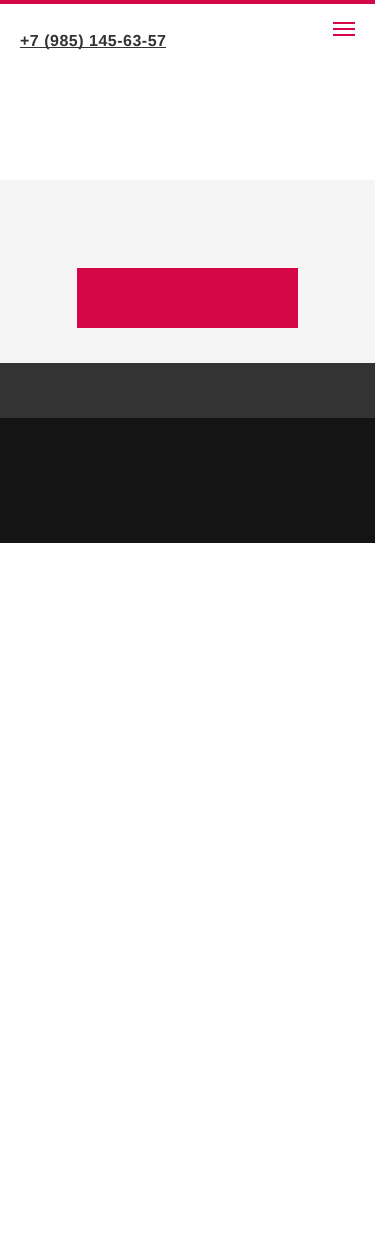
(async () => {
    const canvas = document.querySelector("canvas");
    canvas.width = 375;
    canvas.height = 1253;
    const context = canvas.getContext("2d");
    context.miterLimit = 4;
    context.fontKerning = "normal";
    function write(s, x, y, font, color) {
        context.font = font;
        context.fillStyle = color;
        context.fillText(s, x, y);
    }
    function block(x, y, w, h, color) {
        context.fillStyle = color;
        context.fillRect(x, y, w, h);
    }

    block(0, 0, 375, 1253, "rgb(255, 255, 255)");
    block(0, 0, 375, 4, "rgb(214, 7, 71)");
    block(333, 22, 22, 2, "rgb(214, 7, 71)");
    block(333, 28, 22, 2, "rgb(214, 7, 71)");
    block(333, 34, 22, 2, "rgb(214, 7, 71)");
    block(20, 47, 146, 1, "rgb(51, 51, 51)");
    context.letterSpacing = "0.5px";
    write("+7 (985) 145-63-57", 20, 46, "bold 16px Liberation Sans", "rgb(51, 51, 51)");
    block(0, 180, 375, 183, "rgb(245, 245, 245)");
    block(77, 268, 221, 60, "rgb(214, 7, 71)");
    block(0, 363, 375, 55, "rgb(51, 51, 51)");
    block(0, 418, 375, 125, "rgb(20, 20, 20)");
})();
